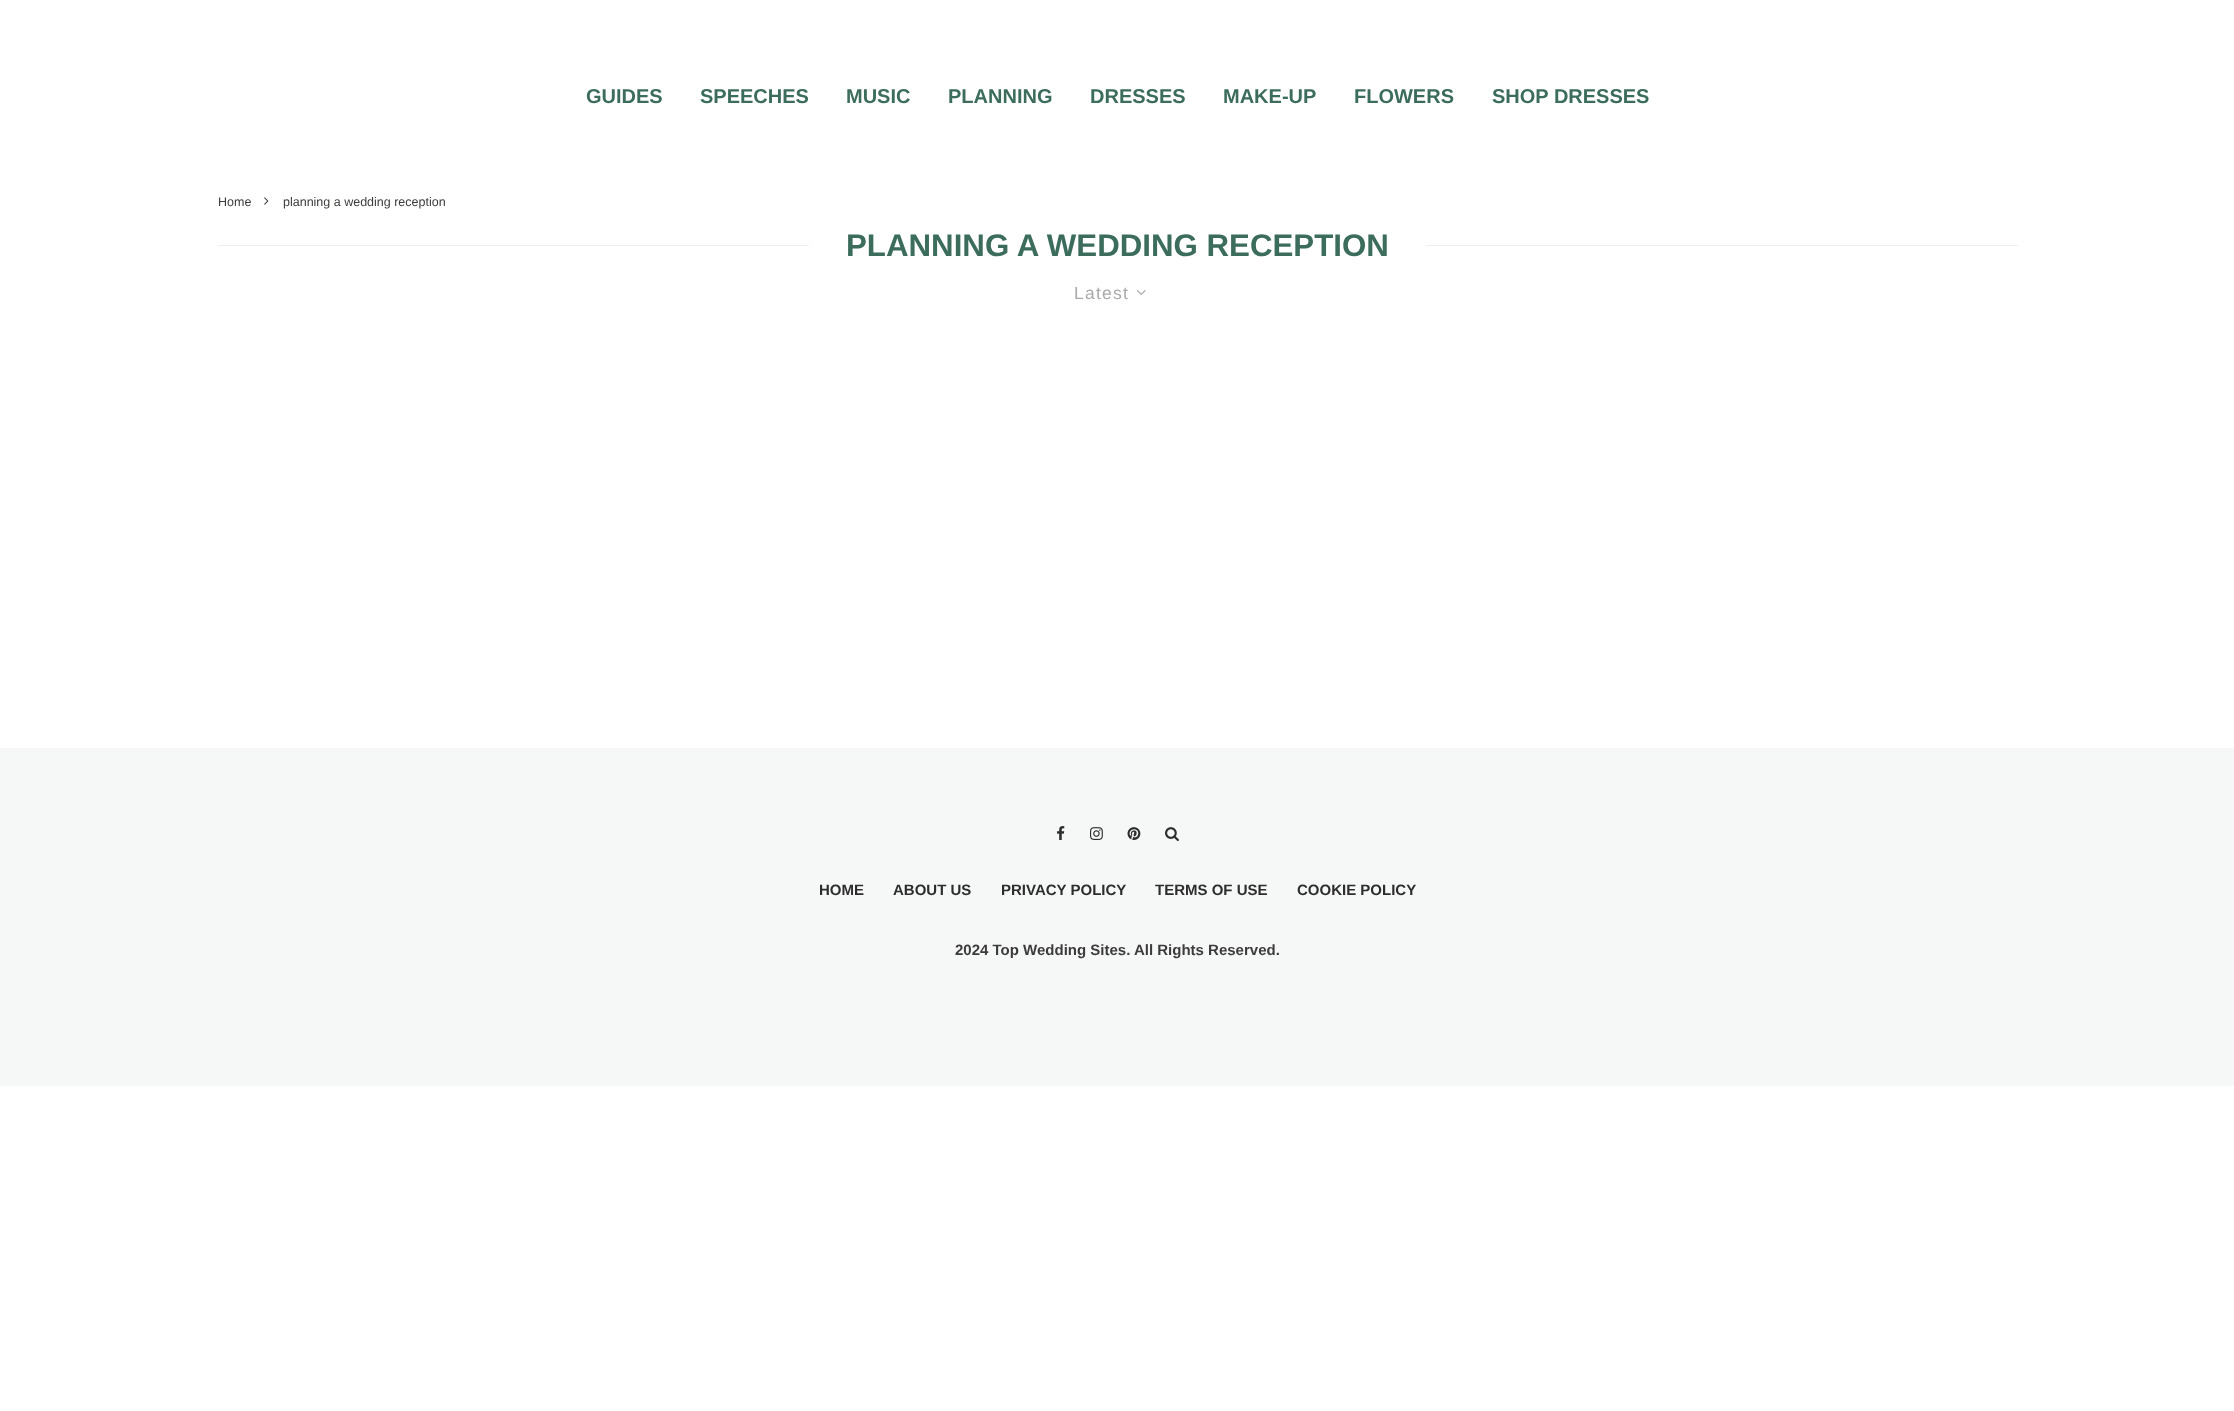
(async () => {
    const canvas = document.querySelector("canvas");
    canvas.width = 2234;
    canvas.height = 1411;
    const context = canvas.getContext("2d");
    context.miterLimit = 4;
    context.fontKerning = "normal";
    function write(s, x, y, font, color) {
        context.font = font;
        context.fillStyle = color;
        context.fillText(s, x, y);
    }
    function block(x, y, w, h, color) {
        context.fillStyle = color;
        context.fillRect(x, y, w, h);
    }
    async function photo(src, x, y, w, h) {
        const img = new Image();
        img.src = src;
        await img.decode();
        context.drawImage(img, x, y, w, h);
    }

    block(0, 0, 2234, 1411, "rgb(255, 255, 255)");
    write("GUIDES", 586, 103, "bold 20px Liberation Sans", "rgb(60, 109, 92)");
    write("SPEECHES", 700, 103, "bold 20px Liberation Sans", "rgb(60, 109, 92)");
    write("MUSIC", 846, 103, "bold 20px Liberation Sans", "rgb(60, 109, 92)");
    write("PLANNING", 948, 103, "bold 20px Liberation Sans", "rgb(60, 109, 92)");
    write("DRESSES", 1090, 103, "bold 20px Liberation Sans", "rgb(60, 109, 92)");
    write("MAKE-UP", 1223, 103, "bold 20px Liberation Sans", "rgb(60, 109, 92)");
    write("FLOWERS", 1354, 103, "bold 20px Liberation Sans", "rgb(60, 109, 92)");
    write("SHOP DRESSES", 1492, 103, "bold 20px Liberation Sans", "rgb(60, 109, 92)");
    write("Home", 218, 206, "12.5px Liberation Sans", "rgb(61, 60, 59)");
    await photo("media/1.png", 264, 197, 5, 8);
    write("planning a wedding reception", 283, 206, "12.5px Liberation Sans", "rgb(61, 60, 59)");
    block(218, 245, 591, 1, "rgb(238, 238, 238)");
    write("PLANNING A WEDDING RECEPTION", 846, 256, "bold 31.25px Liberation Sans", "rgb(60, 109, 92)");
    block(1426, 245, 592, 1, "rgb(238, 238, 238)");
    context.letterSpacing = "1.25px";
    write("Latest", 1074, 299, "17.5px Liberation Sans", "rgb(170, 170, 170)");
    await photo("media/2.png", 1137, 290, 9, 5);
    block(0, 748, 2234, 338, "rgb(246, 248, 247)");
    await photo("media/3.png", 1057, 826, 8, 14);
    await photo("media/4.png", 1090, 827, 13, 13);
    await photo("media/5.png", 1127, 827, 14, 13);
    await photo("media/6.png", 1165, 827, 14, 15);
    context.letterSpacing = "0px";
    write("HOME", 819, 895, "bold 15px Liberation Sans", "rgb(45, 45, 45)");
    write("ABOUT US", 893, 895, "bold 15px Liberation Sans", "rgb(45, 45, 45)");
    write("PRIVACY POLICY", 1001, 895, "bold 15px Liberation Sans", "rgb(45, 45, 45)");
    write("TERMS OF USE", 1155, 895, "bold 15px Liberation Sans", "rgb(45, 45, 45)");
    write("COOKIE POLICY", 1297, 895, "bold 15px Liberation Sans", "rgb(45, 45, 45)");
    write("2024 Top Wedding Sites. All Rights Reserved.", 955, 955, "bold 15px Liberation Sans", "rgb(61, 60, 59)");
})();
